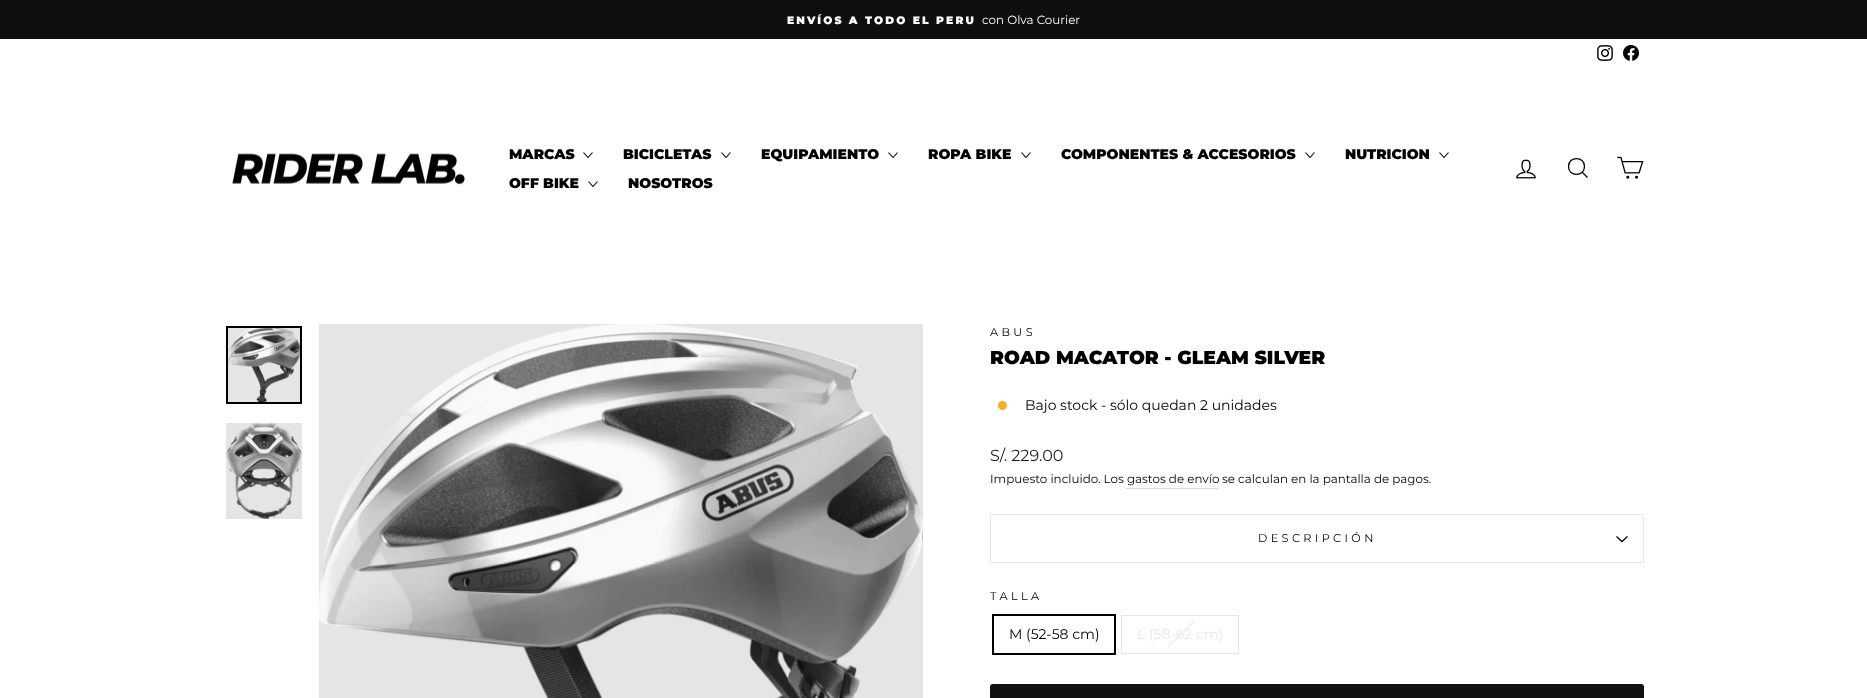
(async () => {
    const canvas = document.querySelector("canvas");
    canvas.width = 1867;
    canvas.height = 698;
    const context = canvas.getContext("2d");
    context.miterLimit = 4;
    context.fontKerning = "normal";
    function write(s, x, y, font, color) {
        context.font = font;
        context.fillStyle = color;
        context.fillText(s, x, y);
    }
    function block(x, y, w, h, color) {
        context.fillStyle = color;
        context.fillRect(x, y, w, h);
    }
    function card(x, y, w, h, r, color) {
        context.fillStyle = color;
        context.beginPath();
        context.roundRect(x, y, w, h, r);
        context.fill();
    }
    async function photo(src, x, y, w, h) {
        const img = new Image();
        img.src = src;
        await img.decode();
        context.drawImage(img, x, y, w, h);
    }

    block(0, 0, 1867, 698, "rgb(255, 255, 255)");
    block(0, 0, 1867, 39, "rgb(15, 15, 15)");
    context.letterSpacing = "2.1px";
    write("ENVÍOS A TODO EL PERU", 787, 24, "900 10.75px Montserrat", "rgb(255, 255, 255)");
    context.letterSpacing = "0px";
    write("con Olva Courier", 982, 24, "11.9px Montserrat", "rgb(255, 255, 255)");
    await photo("media/1.png", 1597, 45, 16, 16);
    await photo("media/2.png", 1623, 45, 16, 16);
    await photo("media/3.png", 232, 153, 233, 32);
    write("MARCAS", 509, 159, "900 14px Montserrat", "rgb(0, 0, 0)");
    context.beginPath();
    context.moveTo(583.5, 152.5);
    context.lineTo(588, 157.5);
    context.lineTo(592.5, 152.5);
    context.strokeStyle = "rgb(0, 0, 0)";
    context.lineWidth = 1.1;
    context.stroke();
    write("BICICLETAS", 623, 159, "900 14px Montserrat", "rgb(0, 0, 0)");
    context.beginPath();
    context.moveTo(721.5, 152.5);
    context.lineTo(726, 157.5);
    context.lineTo(730.5, 152.5);
    context.stroke();
    write("EQUIPAMIENTO", 761, 159, "900 14px Montserrat", "rgb(0, 0, 0)");
    context.beginPath();
    context.moveTo(888.5, 152.5);
    context.lineTo(893, 157.5);
    context.lineTo(897.5, 152.5);
    context.stroke();
    write("ROPA BIKE", 928, 159, "900 14px Montserrat", "rgb(0, 0, 0)");
    context.beginPath();
    context.moveTo(1021.5, 152.5);
    context.lineTo(1026, 157.5);
    context.lineTo(1030.5, 152.5);
    context.stroke();
    write("COMPONENTES & ACCESORIOS", 1061, 159, "900 14px Montserrat", "rgb(0, 0, 0)");
    context.beginPath();
    context.moveTo(1305.5, 152.5);
    context.lineTo(1310, 157.5);
    context.lineTo(1314.5, 152.5);
    context.stroke();
    write("NUTRICION", 1345, 159, "900 14px Montserrat", "rgb(0, 0, 0)");
    context.beginPath();
    context.moveTo(1439.5, 152.5);
    context.lineTo(1444, 157.5);
    context.lineTo(1448.5, 152.5);
    context.stroke();
    write("OFF BIKE", 509, 188, "900 14px Montserrat", "rgb(0, 0, 0)");
    context.beginPath();
    context.moveTo(588.5, 181.5);
    context.lineTo(593, 186.5);
    context.lineTo(597.5, 181.5);
    context.stroke();
    write("NOSOTROS", 628, 188, "900 14px Montserrat", "rgb(0, 0, 0)");
    await photo("media/4.png", 1516, 159, 20, 20);
    context.beginPath();
    context.moveTo(1584.5, 166.5);
    context.bezierCurveTo(1584.5, 177, 1568.5, 177, 1568.5, 166.5);
    context.bezierCurveTo(1568.5, 156, 1584.5, 156, 1584.5, 166.5);
    context.closePath();
    context.moveTo(1587.5, 177.5);
    context.lineTo(1582.5, 172.5);
    context.lineWidth = 1.3;
    context.stroke();
    await photo("media/5.png", 1617, 156, 27, 23);
    block(228, 328, 72, 74, "rgb(229, 229, 229)");
    await photo("media/6.png", 228, 328, 72, 74);
    context.lineWidth = 2;
    context.strokeRect(227, 327, 74, 76);
    block(226, 423, 76, 96, "rgb(229, 229, 229)");
    await photo("media/7.png", 226, 423, 76, 96);
    block(319, 324, 604, 374, "rgb(229, 229, 229)");
    await photo("media/8.png", 319, 324, 604, 374);
    context.letterSpacing = "3.4px";
    write("ABUS", 990, 336, "11.25px Montserrat", "rgb(0, 0, 0)");
    context.letterSpacing = "0px";
    write("ROAD MACATOR - GLEAM SILVER", 990, 364, "900 18.75px Montserrat", "rgb(0, 0, 0)");
    context.fillStyle = "rgb(244, 175, 41)";
    context.beginPath();
    context.arc(1002.5, 405.5, 4.5, 0, Math.PI * 2);
    context.fill();
    write("Bajo stock - sólo quedan 2 unidades", 1025, 410, "14px Montserrat", "rgb(0, 0, 0)");
    write("S/. 229.00", 990, 461, "16px Montserrat", "rgb(28, 29, 29)");
    write("Impuesto incluido. Los gastos de envío", 990, 483, "11.9px Montserrat", "rgb(0, 0, 0)");
    write("se calculan en la pantalla de pagos.", 1222, 483, "11.9px Montserrat", "rgb(0, 0, 0)");
    block(1126, 488, 93, 1, "rgb(217, 217, 217)");
    block(990, 562, 654, 1, "rgb(232, 232, 225)");
    block(990, 514, 654, 1, "rgb(232, 232, 225)");
    block(1643, 514, 1, 48, "rgb(232, 232, 225)");
    block(990, 514, 1, 48, "rgb(232, 232, 225)");
    context.letterSpacing = "3.4px";
    write("DESCRIPCIÓN", 1258, 542, "11.25px Montserrat", "rgb(0, 0, 0)");
    context.beginPath();
    context.moveTo(1616.5, 536.5);
    context.lineTo(1622, 541.5);
    context.lineTo(1627.5, 536.5);
    context.lineWidth = 1.3;
    context.stroke();
    write("TALLA", 990, 600, "11.25px Montserrat", "rgb(0, 0, 0)");
    context.lineWidth = 2;
    context.strokeRect(993, 615, 122, 39);
    context.letterSpacing = "0px";
    write("M (52-58 cm)", 1009, 639, "14px Montserrat", "rgb(0, 0, 0)");
    context.strokeStyle = "rgb(232, 232, 225)";
    context.lineWidth = 1;
    context.strokeRect(1121.5, 615.5, 117, 38);
    context.fillStyle = "rgb(232, 232, 225)";
    context.beginPath();
    context.moveTo(1193, 621.5);
    context.lineTo(1194, 622);
    context.lineTo(1168, 648);
    context.lineTo(1167.5, 647);
    context.closePath();
    context.fill();
    write("L (58-62 cm)", 1137, 639, "14px Montserrat", "rgb(232, 232, 225)");
    card(990, 684, 654, 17, 3, "rgb(17, 17, 17)");
})();
